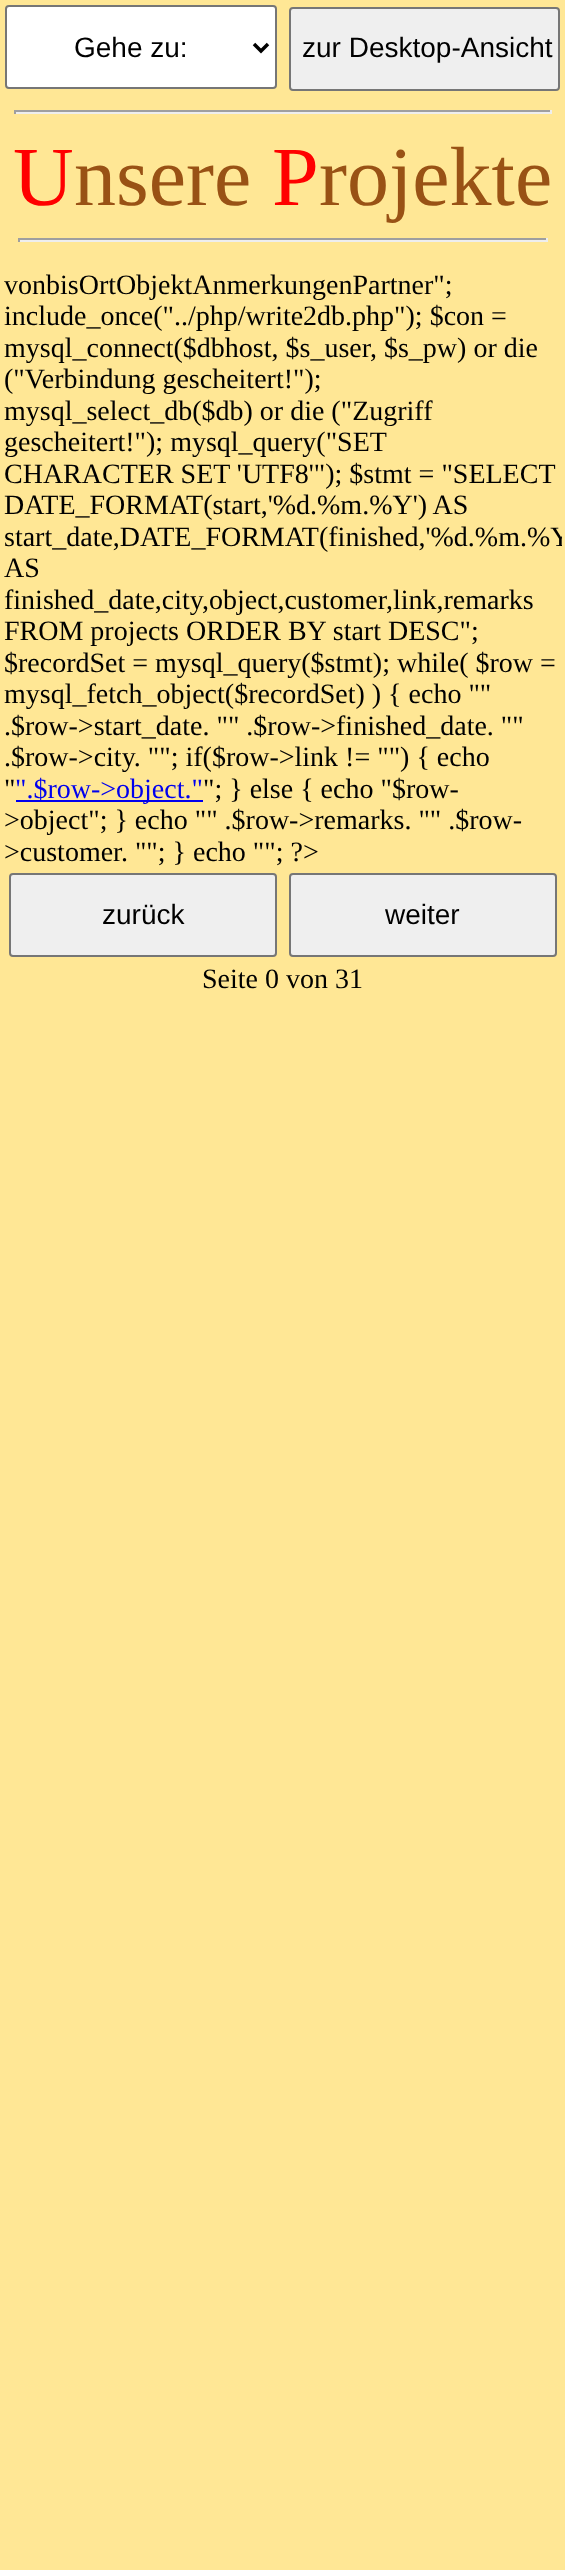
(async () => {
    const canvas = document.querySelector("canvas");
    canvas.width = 565;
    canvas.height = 2570;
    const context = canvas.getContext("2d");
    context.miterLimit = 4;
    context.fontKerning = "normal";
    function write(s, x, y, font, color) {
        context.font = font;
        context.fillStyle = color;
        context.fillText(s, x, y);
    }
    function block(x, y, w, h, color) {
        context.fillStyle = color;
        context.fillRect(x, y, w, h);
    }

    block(0, 0, 565, 2570, "rgb(255, 231, 149)");
    context.fillStyle = "rgb(255, 255, 255)";
    context.beginPath();
    context.roundRect(6, 6, 270, 82, 3);
    context.fill();
    context.strokeStyle = "rgb(118, 118, 118)";
    context.lineWidth = 2;
    context.stroke();
    context.beginPath();
    context.moveTo(254, 44);
    context.lineTo(261, 51);
    context.lineTo(268, 44);
    context.strokeStyle = "rgb(0, 0, 0)";
    context.lineWidth = 3.5;
    context.stroke();
    write("Gehe zu:", 74, 57, "28px Liberation Sans", "rgb(0, 0, 0)");
    context.fillStyle = "rgb(239, 239, 239)";
    context.beginPath();
    context.roundRect(290, 8, 269, 82, 3);
    context.fill();
    context.strokeStyle = "rgb(118, 118, 118)";
    context.lineWidth = 2;
    context.stroke();
    write("zur Desktop-Ansicht", 302, 57, "28px Liberation Sans", "rgb(0, 0, 0)");
    block(14, 110, 537, 2, "rgb(159, 159, 159)");
    block(550, 110, 2, 4, "rgb(238, 238, 238)");
    block(14, 112, 537, 2, "rgb(238, 238, 238)");
    block(14, 110, 2, 4, "rgb(159, 159, 159)");
    write("U", 13, 205, "84px Liberation Serif", "rgb(255, 0, 0)");
    write("nsere", 74, 205, "84px Liberation Serif", "rgb(153, 82, 21)");
    write("P", 272, 205, "84px Liberation Serif", "rgb(255, 0, 0)");
    write("rojekte", 319, 205, "84px Liberation Serif", "rgb(153, 82, 21)");
    block(18, 238, 530, 2, "rgb(159, 159, 159)");
    block(546, 238, 2, 4, "rgb(238, 238, 238)");
    block(18, 240, 530, 2, "rgb(238, 238, 238)");
    block(18, 238, 2, 4, "rgb(159, 159, 159)");
    write("vonbisOrtObjektAnmerkungenPartner\";", 4, 294, "28px Liberation Serif", "rgb(0, 0, 0)");
    write("include_once(\"../php/write2db.php\"); $con =", 4, 325, "28px Liberation Serif", "rgb(0, 0, 0)");
    write("mysql_connect($dbhost, $s_user, $s_pw) or die", 4, 357, "28px Liberation Serif", "rgb(0, 0, 0)");
    write("(\"Verbindung gescheitert!\");", 4, 388, "28px Liberation Serif", "rgb(0, 0, 0)");
    write("mysql_select_db($db) or die (\"Zugriff", 4, 420, "28px Liberation Serif", "rgb(0, 0, 0)");
    write("gescheitert!\"); mysql_query(\"SET", 4, 451, "28px Liberation Serif", "rgb(0, 0, 0)");
    write("CHARACTER SET 'UTF8'\"); $stmt = \"SELECT", 4, 483, "28px Liberation Serif", "rgb(0, 0, 0)");
    write("DATE_FORMAT(start,'%d.%m.%Y') AS", 4, 514, "28px Liberation Serif", "rgb(0, 0, 0)");
    context.save();
    context.beginPath();
    context.rect(4, 128, 558, 866);
    context.clip();
    write("start_date,DATE_FORMAT(finished,'%d.%m.%Y", 4, 546, "28px Liberation Serif", "rgb(0, 0, 0)");
    context.restore();
    write("AS", 4, 577, "28px Liberation Serif", "rgb(0, 0, 0)");
    write("finished_date,city,object,customer,link,remarks", 4, 609, "28px Liberation Serif", "rgb(0, 0, 0)");
    write("FROM projects ORDER BY start DESC\";", 4, 640, "28px Liberation Serif", "rgb(0, 0, 0)");
    write("$recordSet = mysql_query($stmt); while( $row =", 4, 672, "28px Liberation Serif", "rgb(0, 0, 0)");
    write("mysql_fetch_object($recordSet) ) { echo \"\"", 4, 703, "28px Liberation Serif", "rgb(0, 0, 0)");
    write(".$row->start_date. \"\" .$row->finished_date. \"\"", 4, 735, "28px Liberation Serif", "rgb(0, 0, 0)");
    write(".$row->city. \"\"; if($row->link != \"\") { echo", 4, 766, "28px Liberation Serif", "rgb(0, 0, 0)");
    write("\"", 4, 798, "28px Liberation Serif", "rgb(0, 0, 0)");
    block(16, 800, 187, 2, "rgb(0, 0, 238)");
    write("\".$row->object.\"", 15, 798, "28px Liberation Serif", "rgb(0, 0, 238)");
    write("\"; } else { echo \"$row-", 203, 798, "28px Liberation Serif", "rgb(0, 0, 0)");
    write(">object\"; } echo \"\" .$row->remarks. \"\" .$row-", 4, 829, "28px Liberation Serif", "rgb(0, 0, 0)");
    write(">customer. \"\"; } echo \"\"; ?>", 4, 861, "28px Liberation Serif", "rgb(0, 0, 0)");
    context.fillStyle = "rgb(239, 239, 239)";
    context.beginPath();
    context.roundRect(10, 874, 266, 82, 3);
    context.fill();
    context.stroke();
    write("zurück", 102, 924, "28px Liberation Sans", "rgb(0, 0, 0)");
    context.fillStyle = "rgb(239, 239, 239)";
    context.beginPath();
    context.roundRect(290, 874, 266, 82, 3);
    context.fill();
    context.stroke();
    write("weiter", 385, 924, "28px Liberation Sans", "rgb(0, 0, 0)");
    write("Seite 0 von 31", 202, 988, "28px Liberation Serif", "rgb(0, 0, 0)");
})();
